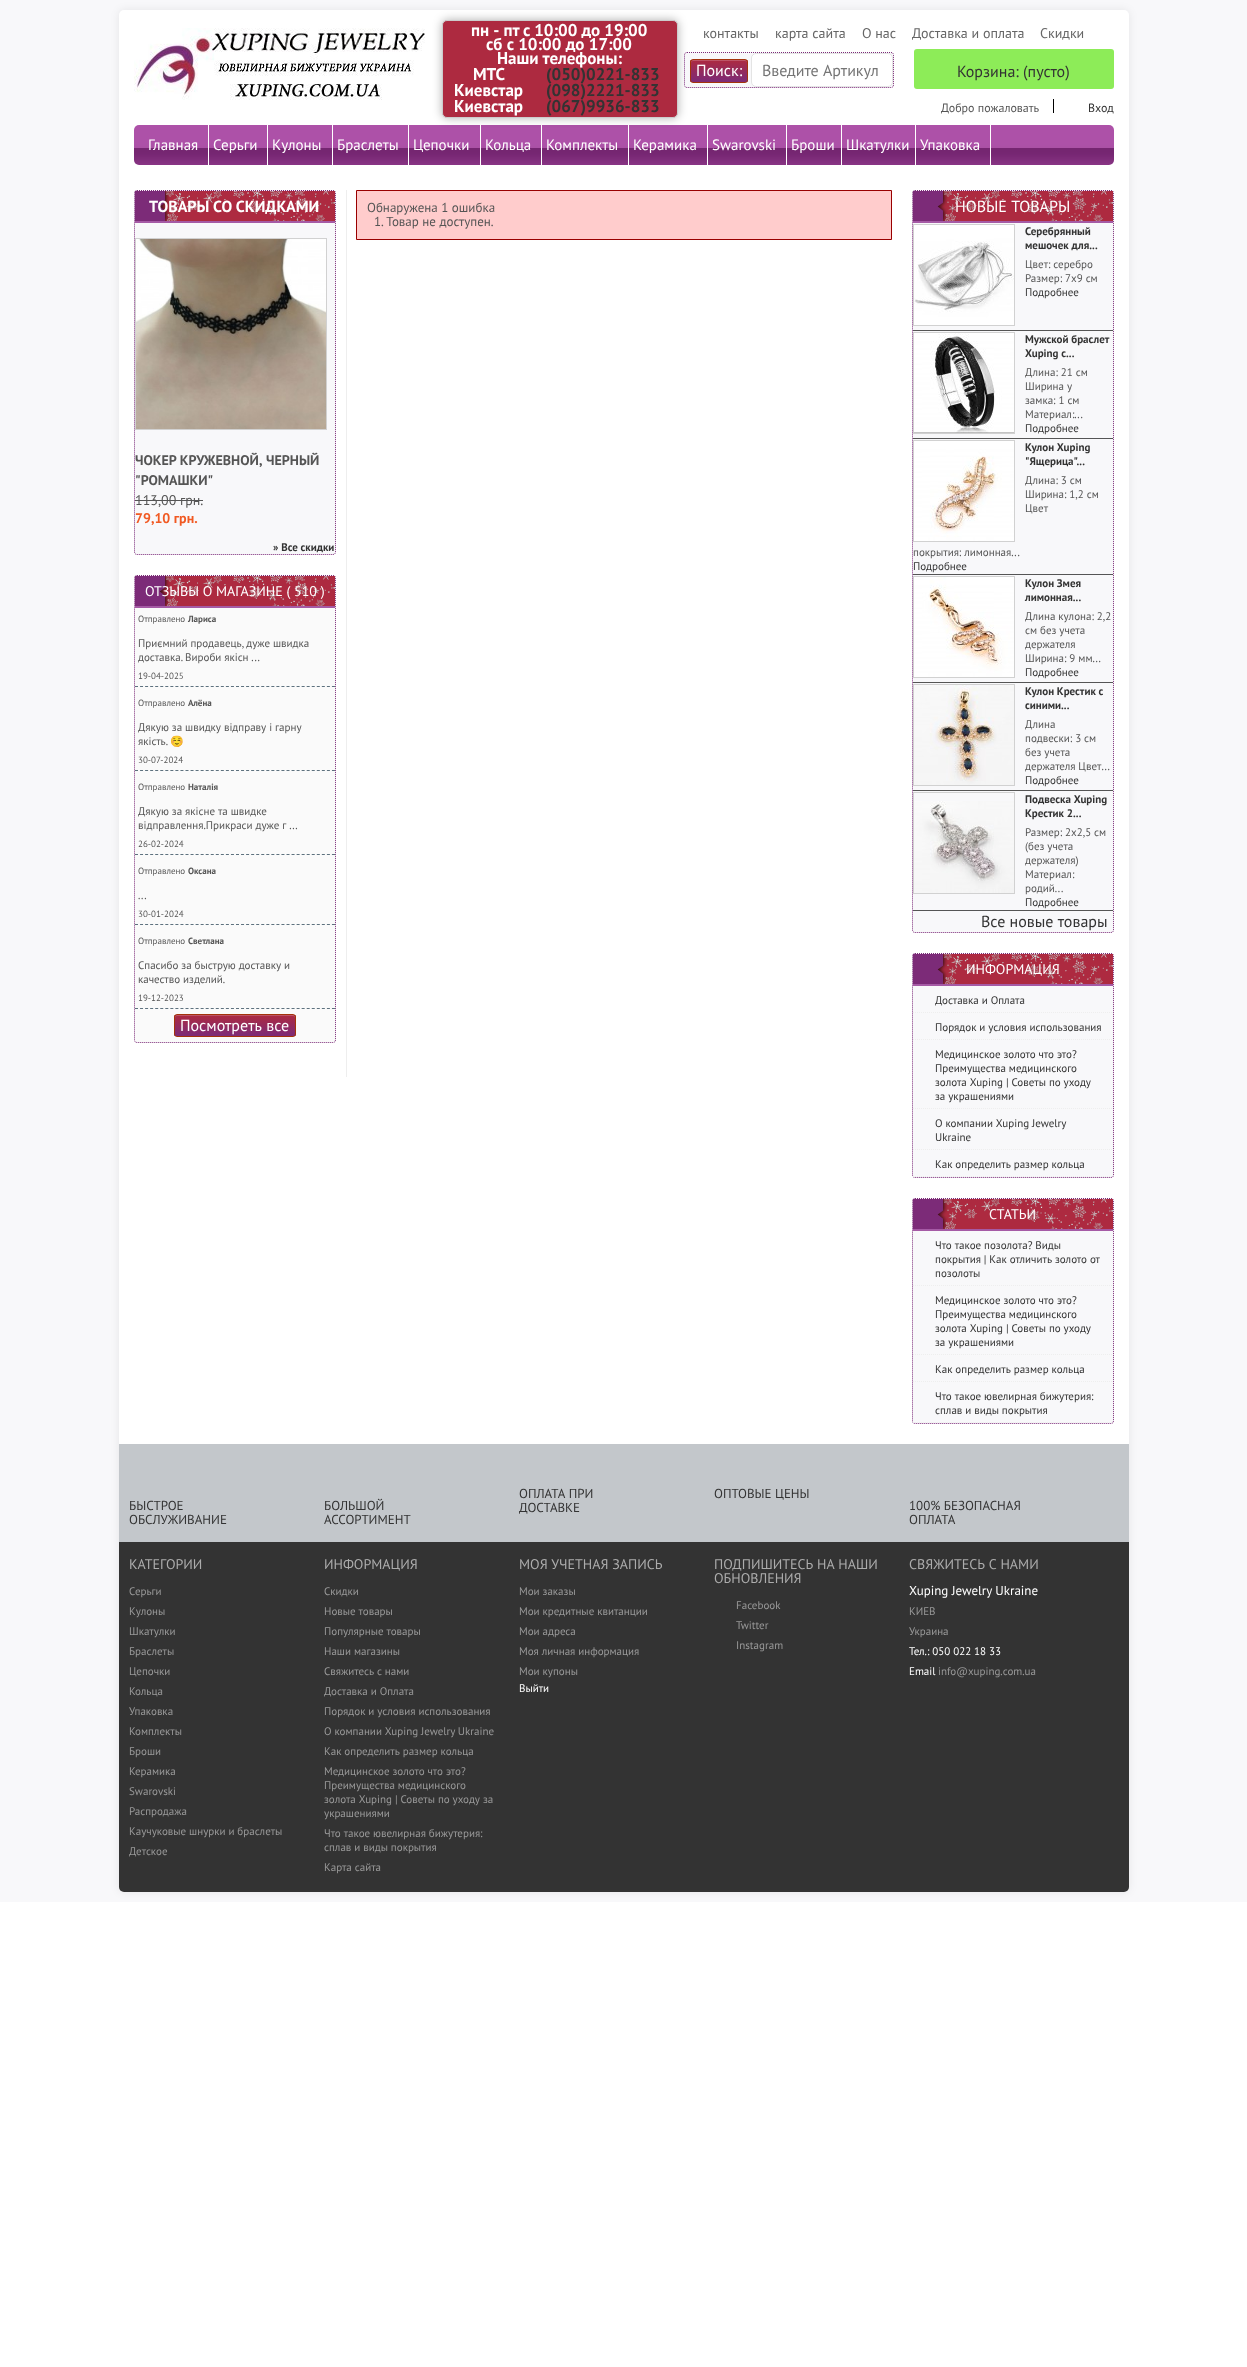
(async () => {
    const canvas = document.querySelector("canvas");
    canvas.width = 1247;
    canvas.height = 2367;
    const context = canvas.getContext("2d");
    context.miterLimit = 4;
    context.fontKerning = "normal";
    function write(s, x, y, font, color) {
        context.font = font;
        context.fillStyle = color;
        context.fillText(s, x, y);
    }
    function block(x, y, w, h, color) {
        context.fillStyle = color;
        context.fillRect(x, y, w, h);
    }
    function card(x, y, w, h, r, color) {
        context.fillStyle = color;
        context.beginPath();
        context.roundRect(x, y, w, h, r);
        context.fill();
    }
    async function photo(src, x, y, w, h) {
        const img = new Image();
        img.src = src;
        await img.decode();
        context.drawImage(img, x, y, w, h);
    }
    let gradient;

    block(0, 0, 1247, 2367, "rgb(255, 255, 255)");
    block(0, 0, 1247, 1902, "rgb(248, 248, 250)");
    context.fillStyle = "rgba(0, 0, 0, 0.08)";
    context.filter = "blur(4px)";
    context.beginPath();
    context.roundRect(119, 10, 1010, 1882, 5);
    context.fill();
    context.filter = "none";
    card(119, 10, 1010, 1882, 5, "rgb(255, 255, 255)");
    await photo("media/1.png", 134, 125, 980, 40);
    block(480, 125, 1, 40, "rgb(255, 255, 255)");
    block(541, 125, 1, 40, "rgb(255, 255, 255)");
    block(628, 125, 1, 40, "rgb(255, 255, 255)");
    context.fillStyle = "rgba(0, 0, 0, 0.3)";
    context.filter = "blur(5px)";
    context.beginPath();
    context.roundRect(442, 20, 236, 98, 5);
    context.fill();
    context.filter = "none";
    context.fillStyle = "rgb(173, 42, 64)";
    context.beginPath();
    context.roundRect(442.5, 20.5, 235, 97, 4.5);
    context.fill();
    context.strokeStyle = "rgb(204, 204, 204)";
    context.stroke();
    context.wordSpacing = "-0.25px";
    write("пн - пт с 10:00 до 19:00", 471, 36, "bold 17px PT Sans", "rgb(255, 255, 255)");
    context.wordSpacing = "0px";
    write("сб с 10:00 до 17:00", 486, 50, "bold 17px PT Sans", "rgb(255, 255, 255)");
    write("Наши телефоны:", 497, 64, "bold 17px PT Sans", "rgb(255, 255, 255)");
    write("МТС", 473, 80, "bold 17px PT Sans", "rgb(255, 255, 255)");
    write("(050)0221-833", 546, 80, "bold 17px PT Sans", "rgb(51, 51, 51)");
    write("Киевстар", 454, 96, "bold 17px PT Sans", "rgb(255, 255, 255)");
    write("(098)2221-833", 546, 96, "bold 17px PT Sans", "rgb(51, 51, 51)");
    write("Киевстар", 454, 112, "bold 17px PT Sans", "rgb(255, 255, 255)");
    write("(067)9936-833", 546, 112, "bold 17px PT Sans", "rgb(51, 51, 51)");
    write("контакты", 703, 38, "14px PT Sans", "rgb(102, 102, 102)");
    write("карта сайта", 775, 38, "14px PT Sans", "rgb(102, 102, 102)");
    write("О нас", 862, 38, "14px PT Sans", "rgb(102, 102, 102)");
    write("Доставка и оплата", 912, 38, "14px PT Sans", "rgb(102, 102, 102)");
    write("Скидки", 1040, 38, "14px PT Sans", "rgb(102, 102, 102)");
    card(684, 52, 210, 36, 3, "rgb(248, 248, 250)");
    context.beginPath();
    context.moveTo(687, 52.5);
    context.lineTo(891, 52.5);
    context.bezierCurveTo(892.5, 52.5, 893.5, 53.5, 893.5, 55);
    context.lineTo(893.5, 85);
    context.bezierCurveTo(893.5, 86.5, 892.5, 87.5, 891, 87.5);
    context.lineTo(687, 87.5);
    context.bezierCurveTo(685.5, 87.5, 684.5, 86.5, 684.5, 85);
    context.lineTo(684.5, 55);
    context.bezierCurveTo(684.5, 53.5, 685.5, 52.5, 687, 52.5);
    context.closePath();
    context.strokeStyle = "rgb(124, 43, 120)";
    context.setLineDash([1, 1]);
    context.stroke();
    context.save();
    context.beginPath();
    context.roundRect(690, 59, 58, 24, 3);
    context.clip();
    gradient = context.createLinearGradient(719, 60, 719, 82);
    gradient.addColorStop(0, "rgb(173, 42, 64)");
    gradient.addColorStop(1, "rgb(124, 43, 120)");
    context.fillStyle = gradient;
    context.fillRect(690, 60, 58, 22);
    context.restore();
    context.fillStyle = "rgb(189, 85, 103)";
    context.beginPath();
    context.moveTo(693, 61);
    context.lineTo(745, 61);
    context.bezierCurveTo(746, 61, 747, 62, 747, 63);
    context.bezierCurveTo(747, 58, 740, 60, 736, 60);
    context.lineTo(702, 60);
    context.bezierCurveTo(698, 60, 691, 58, 691, 63);
    context.bezierCurveTo(691, 62, 692, 61, 693, 61);
    context.closePath();
    context.fill();
    context.beginPath();
    context.roundRect(690.5, 59.5, 57, 23, 2.5);
    context.strokeStyle = "rgb(164, 51, 10)";
    context.setLineDash([]);
    context.stroke();
    write("Поиск:", 696, 76, "16px PT Sans", "rgb(255, 255, 255)");
    context.beginPath();
    context.roundRect(751.5, 53.5, 141, 33, 4.5);
    context.fill();
    context.strokeStyle = "rgb(228, 228, 228)";
    context.stroke();
    write("Введите Артикул", 762, 76, "16px PT Sans", "rgb(117, 117, 117)");
    card(914, 49, 200, 40, 3, "rgb(141, 236, 88)");
    write("Корзина: (пусто)", 957, 77, "16px PT Sans", "rgb(51, 51, 51)");
    write("Добро пожаловать", 941, 112, "12px PT Sans", "rgb(85, 85, 85)");
    block(1053, 99, 1, 14, "rgb(0, 0, 0)");
    write("Вход", 1088, 112, "12px PT Sans", "rgb(51, 51, 51)");
    block(208, 125, 1, 40, "rgb(255, 255, 255)");
    write("Главная", 148, 150, "15px PT Sans", "rgb(255, 255, 255)");
    block(267, 125, 1, 40, "rgb(255, 255, 255)");
    write("Серьги", 213, 150, "15px PT Sans", "rgb(255, 255, 255)");
    block(332, 125, 1, 40, "rgb(255, 255, 255)");
    write("Кулоны", 272, 150, "15px PT Sans", "rgb(255, 255, 255)");
    block(408, 125, 1, 40, "rgb(255, 255, 255)");
    write("Браслеты", 337, 150, "15px PT Sans", "rgb(255, 255, 255)");
    write("Цепочки", 413, 150, "15px PT Sans", "rgb(255, 255, 255)");
    write("Кольца", 485, 150, "15px PT Sans", "rgb(255, 255, 255)");
    write("Комплекты", 546, 150, "15px PT Sans", "rgb(255, 255, 255)");
    block(707, 125, 1, 40, "rgb(255, 255, 255)");
    write("Керамика", 633, 150, "15px PT Sans", "rgb(255, 255, 255)");
    block(786, 125, 1, 40, "rgb(255, 255, 255)");
    write("Swarovski", 712, 150, "15px PT Sans", "rgb(255, 255, 255)");
    block(841, 125, 1, 40, "rgb(255, 255, 255)");
    write("Броши", 791, 150, "15px PT Sans", "rgb(255, 255, 255)");
    block(915, 125, 1, 40, "rgb(255, 255, 255)");
    write("Шкатулки", 846, 150, "15px PT Sans", "rgb(255, 255, 255)");
    block(990, 125, 1, 40, "rgb(255, 255, 255)");
    write("Упаковка", 920, 150, "15px PT Sans", "rgb(255, 255, 255)");
    await photo("media/2.png", 134, 28, 291, 72);
    block(346, 190, 1, 887, "rgb(238, 238, 238)");
    card(134, 190, 202, 365, 3, "rgb(248, 248, 250)");
    context.beginPath();
    context.moveTo(137, 190.5);
    context.lineTo(333, 190.5);
    context.bezierCurveTo(334.5, 190.5, 335.5, 191.5, 335.5, 193);
    context.lineTo(335.5, 552);
    context.bezierCurveTo(335.5, 553.5, 334.5, 554.5, 333, 554.5);
    context.lineTo(137, 554.5);
    context.bezierCurveTo(135.5, 554.5, 134.5, 553.5, 134.5, 552);
    context.lineTo(134.5, 193);
    context.bezierCurveTo(134.5, 191.5, 135.5, 190.5, 137, 190.5);
    context.closePath();
    context.strokeStyle = "rgb(124, 43, 120)";
    context.setLineDash([1, 1]);
    context.stroke();
    await photo("media/3.png", 135, 191, 200, 30);
    block(135, 221, 200, 2, "rgb(165, 90, 165)");
    write("ТОВАРЫ СО СКИДКАМИ", 149, 212, "bold 16px PT Sans", "rgb(255, 255, 255)");
    context.strokeStyle = "rgb(209, 209, 209)";
    context.setLineDash([]);
    context.strokeRect(135.5, 238.5, 191, 191);
    await photo("media/4.png", 136, 239, 190, 190);
    write("ЧОКЕР КРУЖЕВНОЙ, ЧЕРНЫЙ", 135, 465, "bold 14px PT Sans", "rgb(85, 85, 85)");
    write("\"РОМАШКИ\"", 135, 485, "bold 14px PT Sans", "rgb(85, 85, 85)");
    write("113,00 грн.", 135, 505, "14px PT Sans", "rgb(85, 85, 85)");
    block(135, 500, 68, 1, "rgb(85, 85, 85)");
    write("79,10 грн.", 135, 523, "bold 14px PT Sans", "rgb(241, 90, 35)");
    write("» Все скидки", 273, 551, "bold 11px PT Sans", "rgb(51, 51, 51)");
    card(134, 575, 202, 468, 3, "rgb(250, 250, 250)");
    context.beginPath();
    context.moveTo(137, 575.5);
    context.lineTo(333, 575.5);
    context.bezierCurveTo(334.5, 575.5, 335.5, 576.5, 335.5, 578);
    context.lineTo(335.5, 1040);
    context.bezierCurveTo(335.5, 1041.5, 334.5, 1042.5, 333, 1042.5);
    context.lineTo(137, 1042.5);
    context.bezierCurveTo(135.5, 1042.5, 134.5, 1041.5, 134.5, 1040);
    context.lineTo(134.5, 578);
    context.bezierCurveTo(134.5, 576.5, 135.5, 575.5, 137, 575.5);
    context.closePath();
    context.strokeStyle = "rgb(124, 43, 120)";
    context.setLineDash([1, 1]);
    context.stroke();
    await photo("media/3.png", 135, 576, 200, 30);
    block(135, 606, 200, 2, "rgb(165, 90, 165)");
    write("ОТЗЫВЫ О МАГАЗИНЕ ( 510 )", 145, 596, "14px PT Sans", "rgb(255, 255, 255)");
    context.beginPath();
    context.moveTo(135, 686.5);
    context.lineTo(335, 686.5);
    context.strokeStyle = "rgb(93, 113, 126)";
    context.setLineDash([3, 2.05]);
    context.stroke();
    write("Отправлено", 138, 622, "9px PT Sans", "rgb(85, 85, 85)");
    write("Лариса", 188, 622, "bold 9px PT Sans", "rgb(85, 85, 85)");
    write("Приємний продавець, дуже швидка", 138, 647, "11px PT Sans", "rgb(85, 85, 85)");
    write("доставка. Вироби якісн ...", 138, 661, "11px PT Sans", "rgb(85, 85, 85)");
    write("19-04-2025", 138, 679, "9px PT Sans", "rgb(85, 85, 85)");
    context.beginPath();
    context.moveTo(135, 770.5);
    context.lineTo(335, 770.5);
    context.stroke();
    write("Отправлено", 138, 706, "9px PT Sans", "rgb(85, 85, 85)");
    write("Алёна", 188, 706, "bold 9px PT Sans", "rgb(85, 85, 85)");
    write("Дякую за швидку відправу і гарну", 138, 731, "11px PT Sans", "rgb(85, 85, 85)");
    write("якість.", 138, 745, "11px PT Sans", "rgb(85, 85, 85)");
    write("☺️", 170, 745, "11px Noto Color Emoji", "rgb(85, 85, 85)");
    write("30-07-2024", 138, 763, "9px PT Sans", "rgb(85, 85, 85)");
    context.beginPath();
    context.moveTo(135, 854.5);
    context.lineTo(335, 854.5);
    context.stroke();
    write("Отправлено", 138, 790, "9px PT Sans", "rgb(85, 85, 85)");
    write("Наталія", 188, 790, "bold 9px PT Sans", "rgb(85, 85, 85)");
    write("Дякую за якісне та швидке", 138, 815, "11px PT Sans", "rgb(85, 85, 85)");
    write("відправлення.Прикраси дуже г ...", 138, 829, "11px PT Sans", "rgb(85, 85, 85)");
    write("26-02-2024", 138, 847, "9px PT Sans", "rgb(85, 85, 85)");
    context.beginPath();
    context.moveTo(135, 924.5);
    context.lineTo(335, 924.5);
    context.stroke();
    write("Отправлено", 138, 874, "9px PT Sans", "rgb(85, 85, 85)");
    write("Оксана", 188, 874, "bold 9px PT Sans", "rgb(85, 85, 85)");
    write("...", 138, 899, "11px PT Sans", "rgb(85, 85, 85)");
    write("30-01-2024", 138, 917, "9px PT Sans", "rgb(85, 85, 85)");
    context.beginPath();
    context.moveTo(135, 1008.5);
    context.lineTo(335, 1008.5);
    context.stroke();
    write("Отправлено", 138, 944, "9px PT Sans", "rgb(85, 85, 85)");
    write("Светлана", 188, 944, "bold 9px PT Sans", "rgb(85, 85, 85)");
    write("Спасибо за быструю доставку и", 138, 969, "11px PT Sans", "rgb(85, 85, 85)");
    write("качество изделий.", 138, 983, "11px PT Sans", "rgb(85, 85, 85)");
    write("19-12-2023", 138, 1001, "9px PT Sans", "rgb(85, 85, 85)");
    context.save();
    context.beginPath();
    context.roundRect(174, 1014, 122, 23, 3);
    context.clip();
    gradient = context.createLinearGradient(235, 1015, 235, 1036);
    gradient.addColorStop(0, "rgb(173, 42, 64)");
    gradient.addColorStop(1, "rgb(124, 43, 120)");
    context.fillStyle = gradient;
    context.fillRect(174, 1015, 122, 21);
    context.restore();
    context.fillStyle = "rgba(255, 255, 255, 0.2)";
    context.beginPath();
    context.moveTo(177, 1016);
    context.lineTo(293, 1016);
    context.bezierCurveTo(294, 1016, 295, 1017, 295, 1018);
    context.bezierCurveTo(295, 1017, 295, 1016, 294, 1015);
    context.lineTo(196, 1015);
    context.bezierCurveTo(190, 1015, 175, 1011, 175, 1018);
    context.bezierCurveTo(175, 1017, 176, 1016, 177, 1016);
    context.closePath();
    context.fill();
    context.beginPath();
    context.roundRect(174.5, 1014.5, 121, 22, 2.5);
    context.strokeStyle = "rgb(164, 51, 10)";
    context.setLineDash([]);
    context.stroke();
    write("Посмотреть все", 180, 1031, "16px PT Sans", "rgb(255, 255, 255)");
    context.fillStyle = "rgb(255, 204, 204)";
    context.beginPath();
    context.rect(356.5, 190.5, 535, 49);
    context.fill();
    context.strokeStyle = "rgb(153, 0, 0)";
    context.stroke();
    write("Обнаружена 1 ошибка", 367, 212, "13px PT Sans", "rgb(85, 85, 85)");
    write("1. Товар не доступен.", 374, 226, "13px PT Sans", "rgb(85, 85, 85)");
    card(912, 190, 202, 743, 3, "rgb(248, 248, 250)");
    context.beginPath();
    context.moveTo(915, 190.5);
    context.lineTo(1111, 190.5);
    context.bezierCurveTo(1112.5, 190.5, 1113.5, 191.5, 1113.5, 193);
    context.lineTo(1113.5, 930);
    context.bezierCurveTo(1113.5, 931.5, 1112.5, 932.5, 1111, 932.5);
    context.lineTo(915, 932.5);
    context.bezierCurveTo(913.5, 932.5, 912.5, 931.5, 912.5, 930);
    context.lineTo(912.5, 193);
    context.bezierCurveTo(912.5, 191.5, 913.5, 190.5, 915, 190.5);
    context.closePath();
    context.strokeStyle = "rgb(124, 43, 120)";
    context.setLineDash([1, 1]);
    context.stroke();
    await photo("media/3.png", 913, 191, 200, 30);
    block(913, 221, 200, 2, "rgb(165, 90, 165)");
    write("НОВЫЕ ТОВАРЫ", 955, 212, "16px PT Sans", "rgb(255, 255, 255)");
    block(913, 330, 200, 1, "rgb(85, 85, 85)");
    context.strokeStyle = "rgb(209, 209, 209)";
    context.setLineDash([]);
    context.strokeRect(913.5, 224.5, 101, 101);
    await photo("media/5.png", 914, 225, 100, 100);
    write("Серебрянный", 1025, 235, "bold 11px PT Sans", "rgb(51, 51, 51)");
    write("мешочек для...", 1025, 249, "bold 11px PT Sans", "rgb(51, 51, 51)");
    write("Цвет: серебро", 1025, 268, "11px PT Sans", "rgb(85, 85, 85)");
    write("Размер: 7х9 см", 1025, 282, "11px PT Sans", "rgb(85, 85, 85)");
    write("Подробнее", 1025, 296, "11px PT Sans", "rgb(51, 51, 51)");
    block(913, 438, 200, 1, "rgb(85, 85, 85)");
    context.strokeRect(913.5, 332.5, 101, 101);
    await photo("media/6.png", 914, 333, 100, 100);
    write("Мужской браслет", 1025, 343, "bold 11px PT Sans", "rgb(51, 51, 51)");
    write("Xuping с...", 1025, 357, "bold 11px PT Sans", "rgb(51, 51, 51)");
    write("Длина: 21 см", 1025, 376, "11px PT Sans", "rgb(85, 85, 85)");
    write("Ширина у", 1025, 390, "11px PT Sans", "rgb(85, 85, 85)");
    write("замка: 1 см", 1025, 404, "11px PT Sans", "rgb(85, 85, 85)");
    write("Материал:...", 1025, 418, "11px PT Sans", "rgb(85, 85, 85)");
    write("Подробнее", 1025, 432, "11px PT Sans", "rgb(51, 51, 51)");
    block(913, 574, 200, 1, "rgb(85, 85, 85)");
    context.strokeRect(913.5, 440.5, 101, 101);
    await photo("media/7.png", 914, 441, 100, 100);
    write("Кулон Xuping", 1025, 451, "bold 11px PT Sans", "rgb(51, 51, 51)");
    write("\"Ящерица\"...", 1025, 465, "bold 11px PT Sans", "rgb(51, 51, 51)");
    write("Длина: 3 см", 1025, 484, "11px PT Sans", "rgb(85, 85, 85)");
    write("Ширина: 1,2 см", 1025, 498, "11px PT Sans", "rgb(85, 85, 85)");
    write("Цвет", 1025, 512, "11px PT Sans", "rgb(85, 85, 85)");
    write("покрытия: лимонная...", 913, 556, "11px PT Sans", "rgb(85, 85, 85)");
    write("Подробнее", 913, 570, "11px PT Sans", "rgb(51, 51, 51)");
    block(913, 682, 200, 1, "rgb(85, 85, 85)");
    context.strokeRect(913.5, 576.5, 101, 101);
    await photo("media/8.png", 914, 577, 100, 100);
    write("Кулон Змея", 1025, 587, "bold 11px PT Sans", "rgb(51, 51, 51)");
    write("лимонная...", 1025, 601, "bold 11px PT Sans", "rgb(51, 51, 51)");
    write("Длина кулона: 2,2", 1025, 620, "11px PT Sans", "rgb(85, 85, 85)");
    write("см без учета", 1025, 634, "11px PT Sans", "rgb(85, 85, 85)");
    write("держателя", 1025, 648, "11px PT Sans", "rgb(85, 85, 85)");
    write("Ширина: 9 мм...", 1025, 662, "11px PT Sans", "rgb(85, 85, 85)");
    write("Подробнее", 1025, 676, "11px PT Sans", "rgb(51, 51, 51)");
    block(913, 790, 200, 1, "rgb(85, 85, 85)");
    context.strokeRect(913.5, 684.5, 101, 101);
    await photo("media/9.png", 914, 685, 100, 100);
    write("Кулон Крестик с", 1025, 695, "bold 11px PT Sans", "rgb(51, 51, 51)");
    write("синими...", 1025, 709, "bold 11px PT Sans", "rgb(51, 51, 51)");
    write("Длина", 1025, 728, "11px PT Sans", "rgb(85, 85, 85)");
    write("подвески: 3 см", 1025, 742, "11px PT Sans", "rgb(85, 85, 85)");
    write("без учета", 1025, 756, "11px PT Sans", "rgb(85, 85, 85)");
    write("держателя Цвет...", 1025, 770, "11px PT Sans", "rgb(85, 85, 85)");
    write("Подробнее", 1025, 784, "11px PT Sans", "rgb(51, 51, 51)");
    block(913, 910, 200, 1, "rgb(85, 85, 85)");
    context.strokeRect(913.5, 792.5, 101, 101);
    await photo("media/10.png", 914, 801, 100, 92);
    write("Подвеска Xuping", 1025, 803, "bold 11px PT Sans", "rgb(51, 51, 51)");
    write("Крестик 2...", 1025, 817, "bold 11px PT Sans", "rgb(51, 51, 51)");
    write("Размер: 2х2,5 см", 1025, 836, "11px PT Sans", "rgb(85, 85, 85)");
    write("(без учета", 1025, 850, "11px PT Sans", "rgb(85, 85, 85)");
    write("держателя)", 1025, 864, "11px PT Sans", "rgb(85, 85, 85)");
    write("Материал:", 1025, 878, "11px PT Sans", "rgb(85, 85, 85)");
    write("родий...", 1025, 892, "11px PT Sans", "rgb(85, 85, 85)");
    write("Подробнее", 1025, 906, "11px PT Sans", "rgb(51, 51, 51)");
    write("Все новые товары", 981, 927, "16px PT Sans", "rgb(51, 51, 51)");
    card(912, 953, 202, 225, 3, "rgb(248, 248, 250)");
    context.beginPath();
    context.moveTo(915, 953.5);
    context.lineTo(1111, 953.5);
    context.bezierCurveTo(1112.5, 953.5, 1113.5, 954.5, 1113.5, 956);
    context.lineTo(1113.5, 1175);
    context.bezierCurveTo(1113.5, 1176.5, 1112.5, 1177.5, 1111, 1177.5);
    context.lineTo(915, 1177.5);
    context.bezierCurveTo(913.5, 1177.5, 912.5, 1176.5, 912.5, 1175);
    context.lineTo(912.5, 956);
    context.bezierCurveTo(912.5, 954.5, 913.5, 953.5, 915, 953.5);
    context.closePath();
    context.strokeStyle = "rgb(124, 43, 120)";
    context.setLineDash([1, 1]);
    context.stroke();
    await photo("media/3.png", 913, 954, 200, 30);
    block(913, 984, 200, 2, "rgb(165, 90, 165)");
    write("ИНФОРМАЦИЯ", 966, 974, "14px PT Sans", "rgb(255, 255, 255)");
    context.beginPath();
    context.moveTo(913, 1012.5);
    context.lineTo(1113, 1012.5);
    context.strokeStyle = "rgb(238, 238, 238)";
    context.stroke();
    write("Доставка и Оплата", 935, 1004, "11px PT Sans", "rgb(51, 51, 51)");
    context.beginPath();
    context.moveTo(913, 1039.5);
    context.lineTo(1113, 1039.5);
    context.stroke();
    write("Порядок и условия использования", 935, 1031, "11px PT Sans", "rgb(51, 51, 51)");
    context.beginPath();
    context.moveTo(913, 1108.5);
    context.lineTo(1113, 1108.5);
    context.stroke();
    write("Медицинское золото что это?", 935, 1058, "11px PT Sans", "rgb(51, 51, 51)");
    write("Преимущества медицинского", 935, 1072, "11px PT Sans", "rgb(51, 51, 51)");
    write("золота Xuping | Советы по уходу", 935, 1086, "11px PT Sans", "rgb(51, 51, 51)");
    write("за украшениями", 935, 1100, "11px PT Sans", "rgb(51, 51, 51)");
    context.beginPath();
    context.moveTo(913, 1149.5);
    context.lineTo(1113, 1149.5);
    context.stroke();
    write("О компании Xuping Jewelry", 935, 1127, "11px PT Sans", "rgb(51, 51, 51)");
    write("Ukraine", 935, 1141, "11px PT Sans", "rgb(51, 51, 51)");
    context.beginPath();
    context.moveTo(913, 1176.5);
    context.lineTo(1113, 1176.5);
    context.stroke();
    write("Как определить размер кольца", 935, 1168, "11px PT Sans", "rgb(51, 51, 51)");
    card(912, 1198, 202, 226, 3, "rgb(248, 248, 250)");
    context.beginPath();
    context.moveTo(915, 1198.5);
    context.lineTo(1111, 1198.5);
    context.bezierCurveTo(1112.5, 1198.5, 1113.5, 1199.5, 1113.5, 1201);
    context.lineTo(1113.5, 1421);
    context.bezierCurveTo(1113.5, 1422.5, 1112.5, 1423.5, 1111, 1423.5);
    context.lineTo(915, 1423.5);
    context.bezierCurveTo(913.5, 1423.5, 912.5, 1422.5, 912.5, 1421);
    context.lineTo(912.5, 1201);
    context.bezierCurveTo(912.5, 1199.5, 913.5, 1198.5, 915, 1198.5);
    context.closePath();
    context.strokeStyle = "rgb(124, 43, 120)";
    context.stroke();
    await photo("media/3.png", 913, 1199, 200, 30);
    block(913, 1229, 200, 2, "rgb(165, 90, 165)");
    write("СТАТЬИ", 989, 1219, "14px PT Sans", "rgb(255, 255, 255)");
    context.beginPath();
    context.moveTo(913, 1285.5);
    context.lineTo(1113, 1285.5);
    context.strokeStyle = "rgb(238, 238, 238)";
    context.stroke();
    write("Что такое позолота? Виды", 935, 1249, "11px PT Sans", "rgb(51, 51, 51)");
    write("покрытия | Как отличить золото от", 935, 1263, "11px PT Sans", "rgb(51, 51, 51)");
    write("позолоты", 935, 1277, "11px PT Sans", "rgb(51, 51, 51)");
    context.beginPath();
    context.moveTo(913, 1354.5);
    context.lineTo(1113, 1354.5);
    context.stroke();
    write("Медицинское золото что это?", 935, 1304, "11px PT Sans", "rgb(51, 51, 51)");
    write("Преимущества медицинского", 935, 1318, "11px PT Sans", "rgb(51, 51, 51)");
    write("золота Xuping | Советы по уходу", 935, 1332, "11px PT Sans", "rgb(51, 51, 51)");
    write("за украшениями", 935, 1346, "11px PT Sans", "rgb(51, 51, 51)");
    context.beginPath();
    context.moveTo(913, 1381.5);
    context.lineTo(1113, 1381.5);
    context.stroke();
    write("Как определить размер кольца", 935, 1373, "11px PT Sans", "rgb(51, 51, 51)");
    context.beginPath();
    context.moveTo(913, 1422.5);
    context.lineTo(1113, 1422.5);
    context.stroke();
    write("Что такое ювелирная бижутерия:", 935, 1400, "11px PT Sans", "rgb(51, 51, 51)");
    write("сплав и виды покрытия", 935, 1414, "11px PT Sans", "rgb(51, 51, 51)");
    context.beginPath();
    context.roundRect(119, 1444, 1010, 448, [0, 0, 5, 5]);
    context.fill();
    block(119, 1444, 1010, 98, "rgb(195, 199, 203)");
    write("ОПЛАТА ПРИ", 519, 1498, "13px PT Sans", "rgb(51, 51, 51)");
    write("ДОСТАВКЕ", 519, 1512, "13px PT Sans", "rgb(51, 51, 51)");
    write("ОПТОВЫЕ ЦЕНЫ", 714, 1498, "13px PT Sans", "rgb(51, 51, 51)");
    write("БЫСТРОЕ", 129, 1510, "13px PT Sans", "rgb(51, 51, 51)");
    write("ОБСЛУЖИВАНИЕ", 129, 1524, "13px PT Sans", "rgb(51, 51, 51)");
    write("БОЛЬШОЙ", 324, 1510, "13px PT Sans", "rgb(51, 51, 51)");
    write("АССОРТИМЕНТ", 324, 1524, "13px PT Sans", "rgb(51, 51, 51)");
    write("100% БЕЗОПАСНАЯ", 909, 1510, "13px PT Sans", "rgb(51, 51, 51)");
    write("ОПЛАТА", 909, 1524, "13px PT Sans", "rgb(51, 51, 51)");
    write("КАТЕГОРИИ", 129, 1569, "14px PT Sans", "rgb(172, 172, 172)");
    write("Серьги", 129, 1595, "11px PT Sans", "rgb(153, 153, 153)");
    write("Кулоны", 129, 1615, "11px PT Sans", "rgb(153, 153, 153)");
    write("Шкатулки", 129, 1635, "11px PT Sans", "rgb(153, 153, 153)");
    write("Браслеты", 129, 1655, "11px PT Sans", "rgb(153, 153, 153)");
    write("Цепочки", 129, 1675, "11px PT Sans", "rgb(153, 153, 153)");
    write("Кольца", 129, 1695, "11px PT Sans", "rgb(153, 153, 153)");
    write("Упаковка", 129, 1715, "11px PT Sans", "rgb(153, 153, 153)");
    write("Комплекты", 129, 1735, "11px PT Sans", "rgb(153, 153, 153)");
    write("Броши", 129, 1755, "11px PT Sans", "rgb(153, 153, 153)");
    write("Керамика", 129, 1775, "11px PT Sans", "rgb(153, 153, 153)");
    write("Swarovski", 129, 1795, "11px PT Sans", "rgb(153, 153, 153)");
    write("Распродажа", 129, 1815, "11px PT Sans", "rgb(153, 153, 153)");
    write("Каучуковые шнурки и браслеты", 129, 1835, "11px PT Sans", "rgb(153, 153, 153)");
    write("Детское", 129, 1855, "11px PT Sans", "rgb(153, 153, 153)");
    write("ИНФОРМАЦИЯ", 324, 1569, "14px PT Sans", "rgb(172, 172, 172)");
    write("Скидки", 324, 1595, "11px PT Sans", "rgb(153, 153, 153)");
    write("Новые товары", 324, 1615, "11px PT Sans", "rgb(153, 153, 153)");
    write("Популярные товары", 324, 1635, "11px PT Sans", "rgb(153, 153, 153)");
    write("Наши магазины", 324, 1655, "11px PT Sans", "rgb(153, 153, 153)");
    write("Свяжитесь с нами", 324, 1675, "11px PT Sans", "rgb(153, 153, 153)");
    write("Доставка и Оплата", 324, 1695, "11px PT Sans", "rgb(153, 153, 153)");
    write("Порядок и условия использования", 324, 1715, "11px PT Sans", "rgb(153, 153, 153)");
    write("О компании Xuping Jewelry Ukraine", 324, 1735, "11px PT Sans", "rgb(153, 153, 153)");
    write("Как определить размер кольца", 324, 1755, "11px PT Sans", "rgb(153, 153, 153)");
    write("Медицинское золото что это?", 324, 1775, "11px PT Sans", "rgb(153, 153, 153)");
    write("Преимущества медицинского", 324, 1789, "11px PT Sans", "rgb(153, 153, 153)");
    write("золота Xuping | Советы по уходу за", 324, 1803, "11px PT Sans", "rgb(153, 153, 153)");
    write("украшениями", 324, 1817, "11px PT Sans", "rgb(153, 153, 153)");
    write("Что такое ювелирная бижутерия:", 324, 1837, "11px PT Sans", "rgb(153, 153, 153)");
    write("сплав и виды покрытия", 324, 1851, "11px PT Sans", "rgb(153, 153, 153)");
    write("Карта сайта", 324, 1871, "11px PT Sans", "rgb(153, 153, 153)");
    write("МОЯ УЧЕТНАЯ ЗАПИСЬ", 519, 1569, "14px PT Sans", "rgb(172, 172, 172)");
    write("Мои заказы", 519, 1595, "11px PT Sans", "rgb(153, 153, 153)");
    write("Мои кредитные квитанции", 519, 1615, "11px PT Sans", "rgb(153, 153, 153)");
    write("Мои адреса", 519, 1635, "11px PT Sans", "rgb(153, 153, 153)");
    write("Моя личная информация", 519, 1655, "11px PT Sans", "rgb(153, 153, 153)");
    write("Мои купоны", 519, 1675, "11px PT Sans", "rgb(153, 153, 153)");
    write("Выйти", 519, 1692, "11px PT Sans", "rgb(255, 255, 255)");
    write("ПОДПИШИТЕСЬ НА НАШИ", 714, 1569, "14px PT Sans", "rgb(172, 172, 172)");
    write("ОБНОВЛЕНИЯ", 714, 1583, "14px PT Sans", "rgb(172, 172, 172)");
    write("Facebook", 736, 1609, "11px PT Sans", "rgb(153, 153, 153)");
    write("Twitter", 736, 1629, "11px PT Sans", "rgb(153, 153, 153)");
    write("Instagram", 736, 1649, "11px PT Sans", "rgb(153, 153, 153)");
    write("СВЯЖИТЕСЬ С НАМИ", 909, 1569, "14px PT Sans", "rgb(172, 172, 172)");
    write("Xuping Jewelry Ukraine", 909, 1595, "13px PT Sans", "rgb(255, 255, 255)");
    write("КИЕВ", 909, 1615, "11px PT Sans", "rgb(153, 153, 153)");
    write("Украина", 909, 1635, "11px PT Sans", "rgb(153, 153, 153)");
    write("Тел.: 050 022 18 33", 909, 1655, "11px PT Sans", "rgb(255, 255, 255)");
    write("Email", 909, 1675, "11px PT Sans", "rgb(255, 255, 255)");
    write("info@xuping.com.ua", 938, 1675, "11px PT Sans", "rgb(153, 153, 153)");
})();
